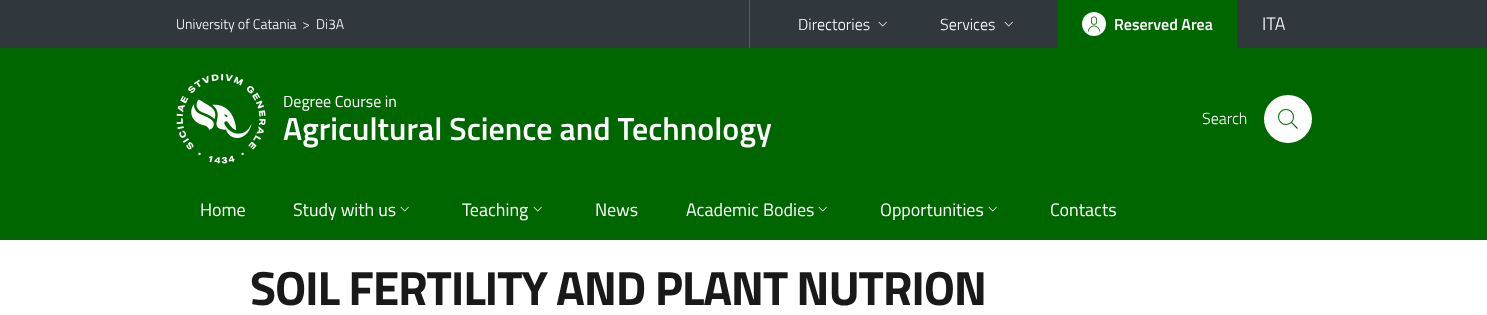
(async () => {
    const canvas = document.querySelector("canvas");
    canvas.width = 1487;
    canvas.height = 315;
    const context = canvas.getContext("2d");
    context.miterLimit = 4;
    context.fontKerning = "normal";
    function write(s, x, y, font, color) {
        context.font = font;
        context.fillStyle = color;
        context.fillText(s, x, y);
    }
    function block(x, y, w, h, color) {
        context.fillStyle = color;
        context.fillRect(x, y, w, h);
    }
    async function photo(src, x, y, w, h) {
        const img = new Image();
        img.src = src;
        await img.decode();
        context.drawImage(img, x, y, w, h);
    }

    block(0, 0, 1487, 315, "rgb(255, 255, 255)");
    block(0, 0, 1487, 48, "rgb(48, 55, 61)");
    write("University of Catania", 176, 29, "300 14px Titillium Web", "rgb(255, 255, 255)");
    write(">", 302, 29, "300 14px Titillium Web", "rgb(255, 255, 255)");
    write("Di3A", 316, 29, "300 14px Titillium Web", "rgb(255, 255, 255)");
    block(749, 0, 1, 48, "rgb(89, 95, 100)");
    write("Directories", 798, 30, "300 16px Titillium Web", "rgb(255, 255, 255)");
    await photo("media/1.png", 878, 21, 9, 6);
    write("Services", 940, 30, "300 16px Titillium Web", "rgb(255, 255, 255)");
    await photo("media/1.png", 1004, 21, 9, 6);
    block(1058, 0, 179, 48, "rgb(0, 102, 0)");
    context.fillStyle = "rgb(255, 255, 255)";
    context.beginPath();
    context.arc(1094, 24, 12, 0, Math.PI * 2);
    context.fill();
    await photo("media/2.png", 1088, 16, 12, 16);
    write("Reserved Area", 1114, 30, "600 16px Titillium Web", "rgb(255, 255, 255)");
    write("ITA", 1262, 30, "300 18px Titillium Web", "rgb(255, 255, 255)");
    block(0, 48, 1487, 192, "rgb(0, 102, 0)");
    await photo("media/3.png", 176, 74, 90, 90);
    write("Degree Course in", 283, 107, "16px Titillium Web", "rgb(255, 255, 255)");
    write("Agricultural Science and Technology", 283, 140, "600 32px Titillium Web", "rgb(255, 255, 255)");
    write("Search", 1202, 124, "300 16px Titillium Web", "rgb(255, 255, 255)");
    context.beginPath();
    context.arc(1288, 119, 24, 0, Math.PI * 2);
    context.fill();
    await photo("media/4.png", 1278, 109, 20, 20);
    write("Home", 200, 216, "18px Titillium Web", "rgb(255, 255, 255)");
    write("Study with us", 293, 216, "18px Titillium Web", "rgb(255, 255, 255)");
    await photo("media/5.png", 400, 206, 9, 6);
    write("Teaching", 462, 216, "18px Titillium Web", "rgb(255, 255, 255)");
    await photo("media/5.png", 533, 206, 9, 6);
    write("News", 595, 216, "18px Titillium Web", "rgb(255, 255, 255)");
    write("Academic Bodies", 686, 216, "18px Titillium Web", "rgb(255, 255, 255)");
    await photo("media/5.png", 818, 206, 9, 6);
    write("Opportunities", 880, 216, "18px Titillium Web", "rgb(255, 255, 255)");
    await photo("media/5.png", 988, 206, 9, 6);
    write("Contacts", 1050, 216, "18px Titillium Web", "rgb(255, 255, 255)");
    context.letterSpacing = "-1.2px";
    write("SOIL FERTILITY AND PLANT NUTRION", 250, 305, "bold 48px Titillium Web", "rgb(25, 25, 26)");
})();
